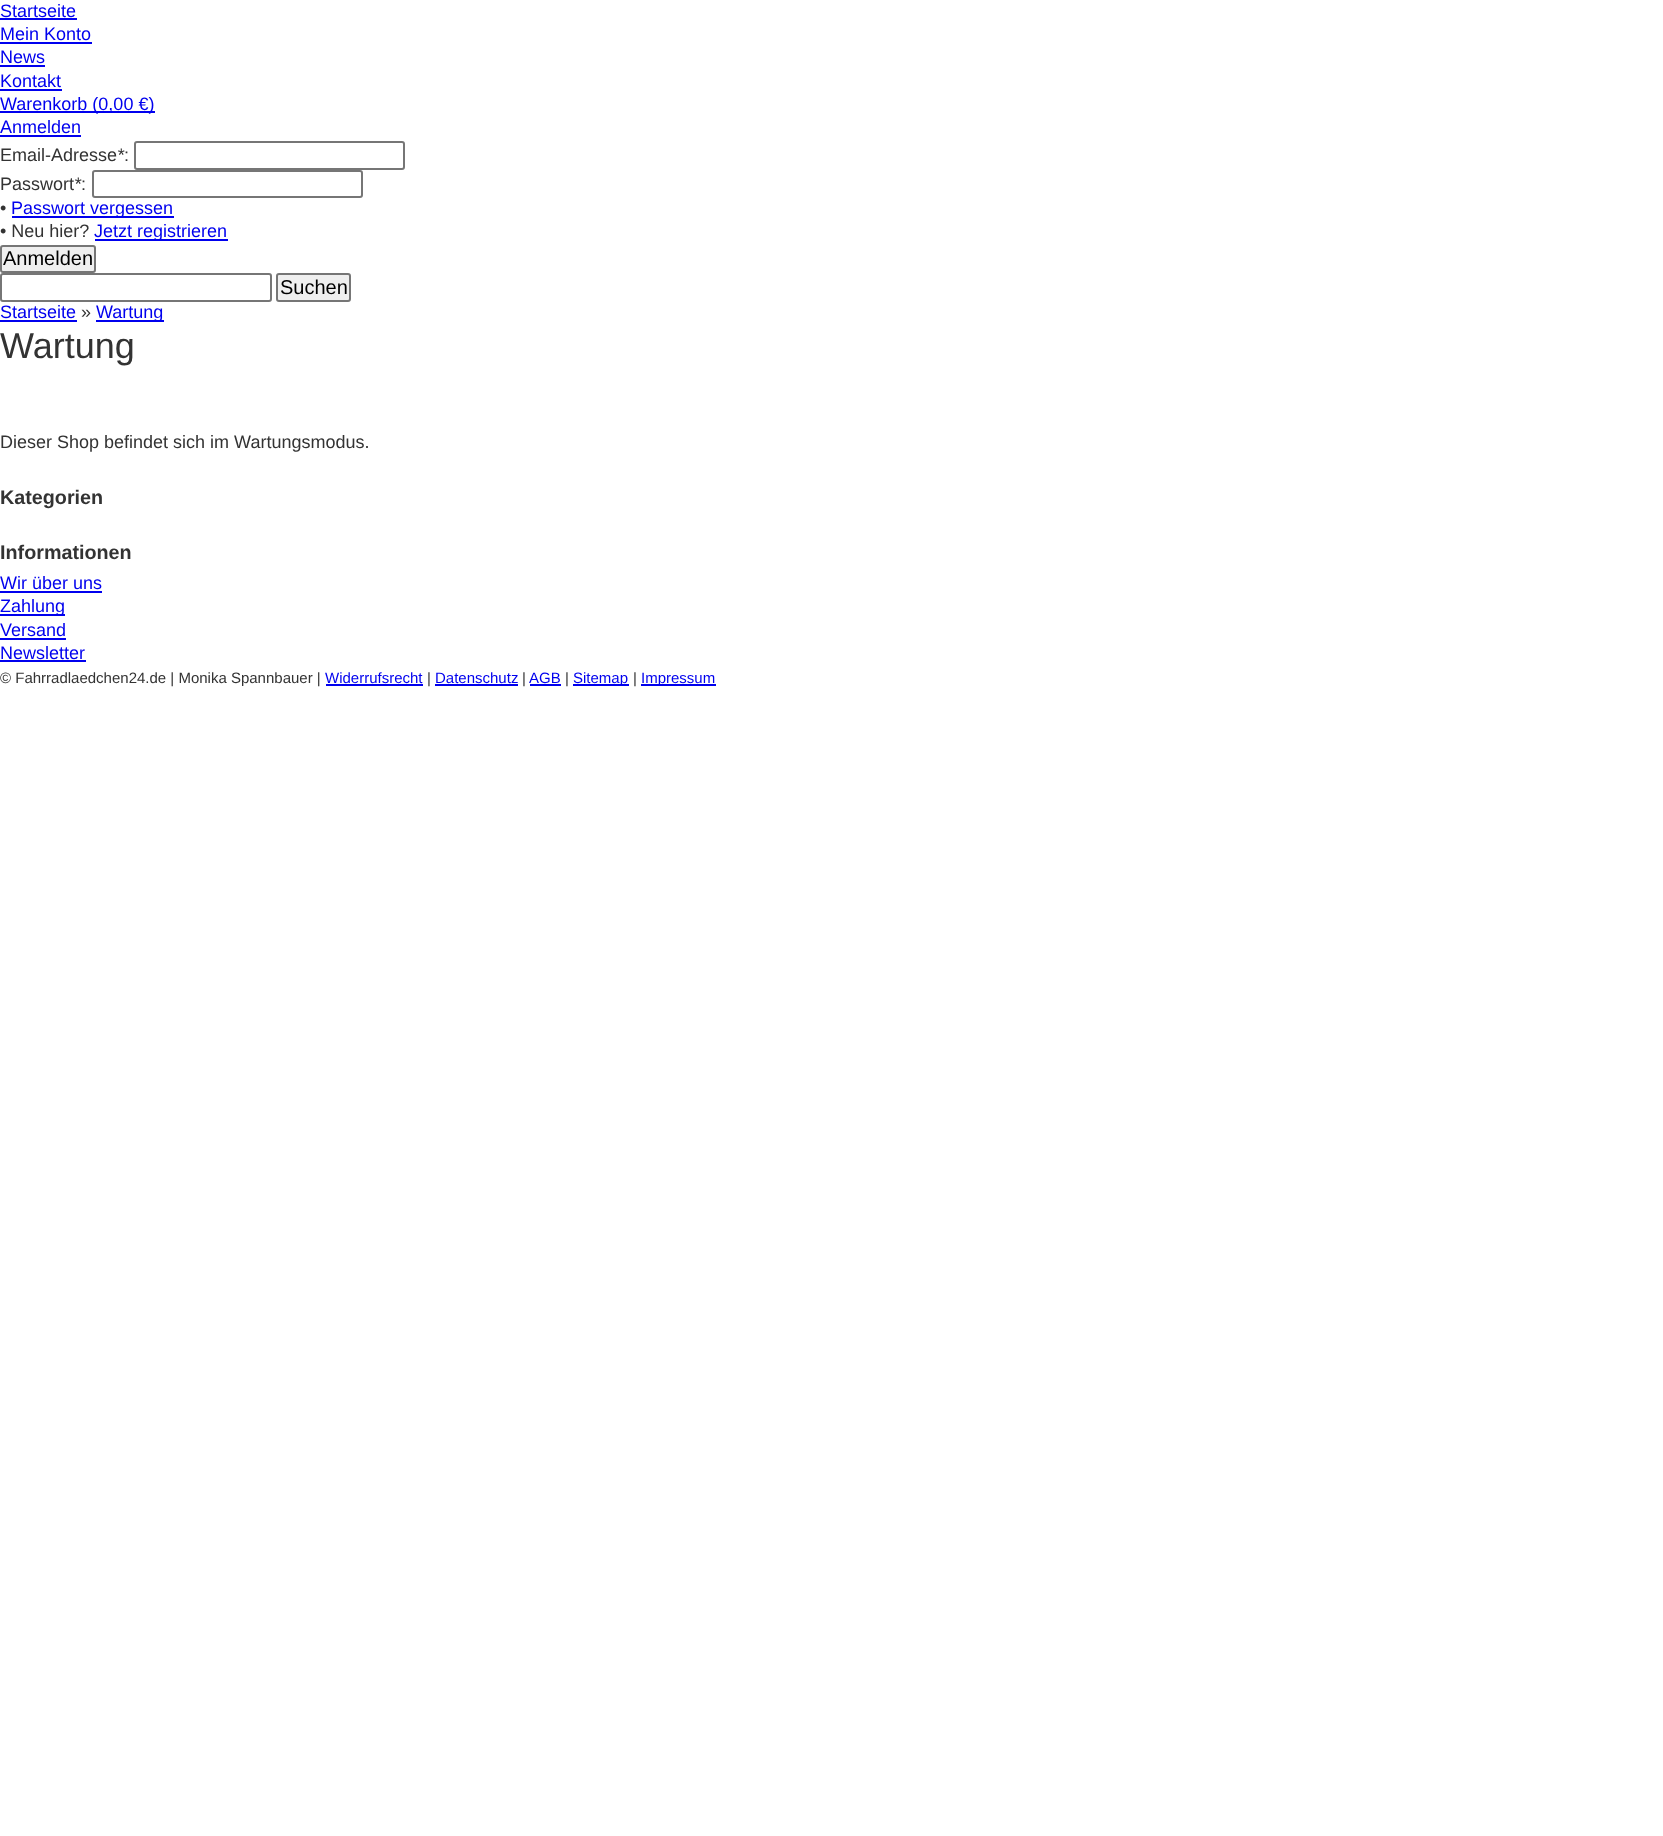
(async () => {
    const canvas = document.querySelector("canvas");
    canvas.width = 1663;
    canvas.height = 1836;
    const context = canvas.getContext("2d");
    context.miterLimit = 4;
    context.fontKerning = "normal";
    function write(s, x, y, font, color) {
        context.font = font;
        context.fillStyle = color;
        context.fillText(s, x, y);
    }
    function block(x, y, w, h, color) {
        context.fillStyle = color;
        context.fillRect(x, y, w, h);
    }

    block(0, 0, 1663, 1836, "rgb(255, 255, 255)");
    write("Startseite", 0, 17, "18px Liberation Sans", "rgb(0, 0, 238)");
    block(0, 18, 77, 2, "rgb(0, 0, 238)");
    write("Mein Konto", 0, 40, "18px Liberation Sans", "rgb(0, 0, 238)");
    block(0, 42, 92, 2, "rgb(0, 0, 238)");
    write("News", 0, 63, "18px Liberation Sans", "rgb(0, 0, 238)");
    block(0, 65, 45, 2, "rgb(0, 0, 238)");
    write("Kontakt", 0, 87, "18px Liberation Sans", "rgb(0, 0, 238)");
    block(0, 89, 62, 2, "rgb(0, 0, 238)");
    block(0, 111, 155, 2, "rgb(0, 0, 238)");
    write("Warenkorb (0,00 €)", 0, 110, "18px Liberation Sans", "rgb(0, 0, 238)");
    write("Anmelden", 0, 133, "18px Liberation Sans", "rgb(0, 0, 238)");
    block(0, 135, 81, 2, "rgb(0, 0, 238)");
    write("Email-Adresse", 0, 161, "18px Liberation Sans", "rgb(51, 51, 51)");
    write("*", 117, 161, "italic 18px Liberation Sans", "rgb(51, 51, 51)");
    write(":", 124, 161, "18px Liberation Sans", "rgb(51, 51, 51)");
    context.beginPath();
    context.roundRect(135, 142, 269, 27, 2);
    context.strokeStyle = "rgb(118, 118, 118)";
    context.lineWidth = 2;
    context.stroke();
    write("Passwort", 0, 190, "18px Liberation Sans", "rgb(51, 51, 51)");
    write("*", 74, 190, "italic 18px Liberation Sans", "rgb(51, 51, 51)");
    write(":", 81, 190, "18px Liberation Sans", "rgb(51, 51, 51)");
    context.beginPath();
    context.roundRect(93, 171, 269, 26, 2);
    context.stroke();
    write("•", 0, 214, "18px Liberation Sans", "rgb(51, 51, 51)");
    block(12, 216, 162, 2, "rgb(0, 0, 238)");
    write("Passwort vergessen", 11, 214, "18px Liberation Sans", "rgb(0, 0, 238)");
    write("• Neu hier?", 0, 237, "18px Liberation Sans", "rgb(51, 51, 51)");
    block(95, 239, 133, 2, "rgb(0, 0, 238)");
    write("Jetzt registrieren", 94, 237, "18px Liberation Sans", "rgb(0, 0, 238)");
    context.fillStyle = "rgb(239, 239, 239)";
    context.beginPath();
    context.roundRect(1, 246, 94, 26, 2);
    context.fill();
    context.stroke();
    write("Anmelden", 3, 265, "20px Liberation Sans", "rgb(0, 0, 0)");
    context.beginPath();
    context.roundRect(1, 274, 270, 27, 2);
    context.stroke();
    context.fillStyle = "rgb(239, 239, 239)";
    context.beginPath();
    context.roundRect(277, 274, 73, 27, 2);
    context.fill();
    context.stroke();
    write("Suchen", 280, 294, "20px Liberation Sans", "rgb(0, 0, 0)");
    write("Startseite", 0, 318, "18px Liberation Sans", "rgb(0, 0, 238)");
    block(0, 320, 77, 2, "rgb(0, 0, 238)");
    write("»", 81, 318, "18px Liberation Sans", "rgb(51, 51, 51)");
    block(96, 320, 68, 2, "rgb(0, 0, 238)");
    write("Wartung", 96, 318, "18px Liberation Sans", "rgb(0, 0, 238)");
    write("Wartung", 0, 358, "36px Liberation Sans", "rgb(51, 51, 51)");
    write("Dieser Shop befindet sich im Wartungsmodus.", 0, 448, "18px Liberation Sans", "rgb(51, 51, 51)");
    write("Kategorien", 0, 504, "bold 19.75px Liberation Sans", "rgb(51, 51, 51)");
    write("Informationen", 0, 559, "bold 19.75px Liberation Sans", "rgb(51, 51, 51)");
    write("Wir über uns", 0, 589, "18px Liberation Sans", "rgb(0, 0, 238)");
    block(0, 591, 102, 2, "rgb(0, 0, 238)");
    block(0, 614, 65, 2, "rgb(0, 0, 238)");
    write("Zahlung", 0, 612, "18px Liberation Sans", "rgb(0, 0, 238)");
    write("Versand", 0, 636, "18px Liberation Sans", "rgb(0, 0, 238)");
    block(0, 638, 66, 2, "rgb(0, 0, 238)");
    write("Newsletter", 0, 659, "18px Liberation Sans", "rgb(0, 0, 238)");
    block(0, 660, 86, 2, "rgb(0, 0, 238)");
    write("© Fahrradlaedchen24.de | Monika Spannbauer |", 0, 683, "15px Liberation Sans", "rgb(51, 51, 51)");
    write("Widerrufsrecht", 325, 683, "15px Liberation Sans", "rgb(0, 0, 238)");
    block(326, 684, 97, 2, "rgb(0, 0, 238)");
    write("|", 427, 683, "15px Liberation Sans", "rgb(51, 51, 51)");
    write("Datenschutz", 435, 683, "15px Liberation Sans", "rgb(0, 0, 238)");
    block(435, 684, 83, 2, "rgb(0, 0, 238)");
    write("|", 522, 683, "15px Liberation Sans", "rgb(51, 51, 51)");
    write("AGB", 529, 683, "15px Liberation Sans", "rgb(0, 0, 238)");
    block(530, 684, 31, 2, "rgb(0, 0, 238)");
    write("|", 565, 683, "15px Liberation Sans", "rgb(51, 51, 51)");
    block(573, 684, 56, 2, "rgb(0, 0, 238)");
    write("Sitemap", 573, 683, "15px Liberation Sans", "rgb(0, 0, 238)");
    write("|", 633, 683, "15px Liberation Sans", "rgb(51, 51, 51)");
    block(641, 684, 75, 2, "rgb(0, 0, 238)");
    write("Impressum", 641, 683, "15px Liberation Sans", "rgb(0, 0, 238)");
})();
